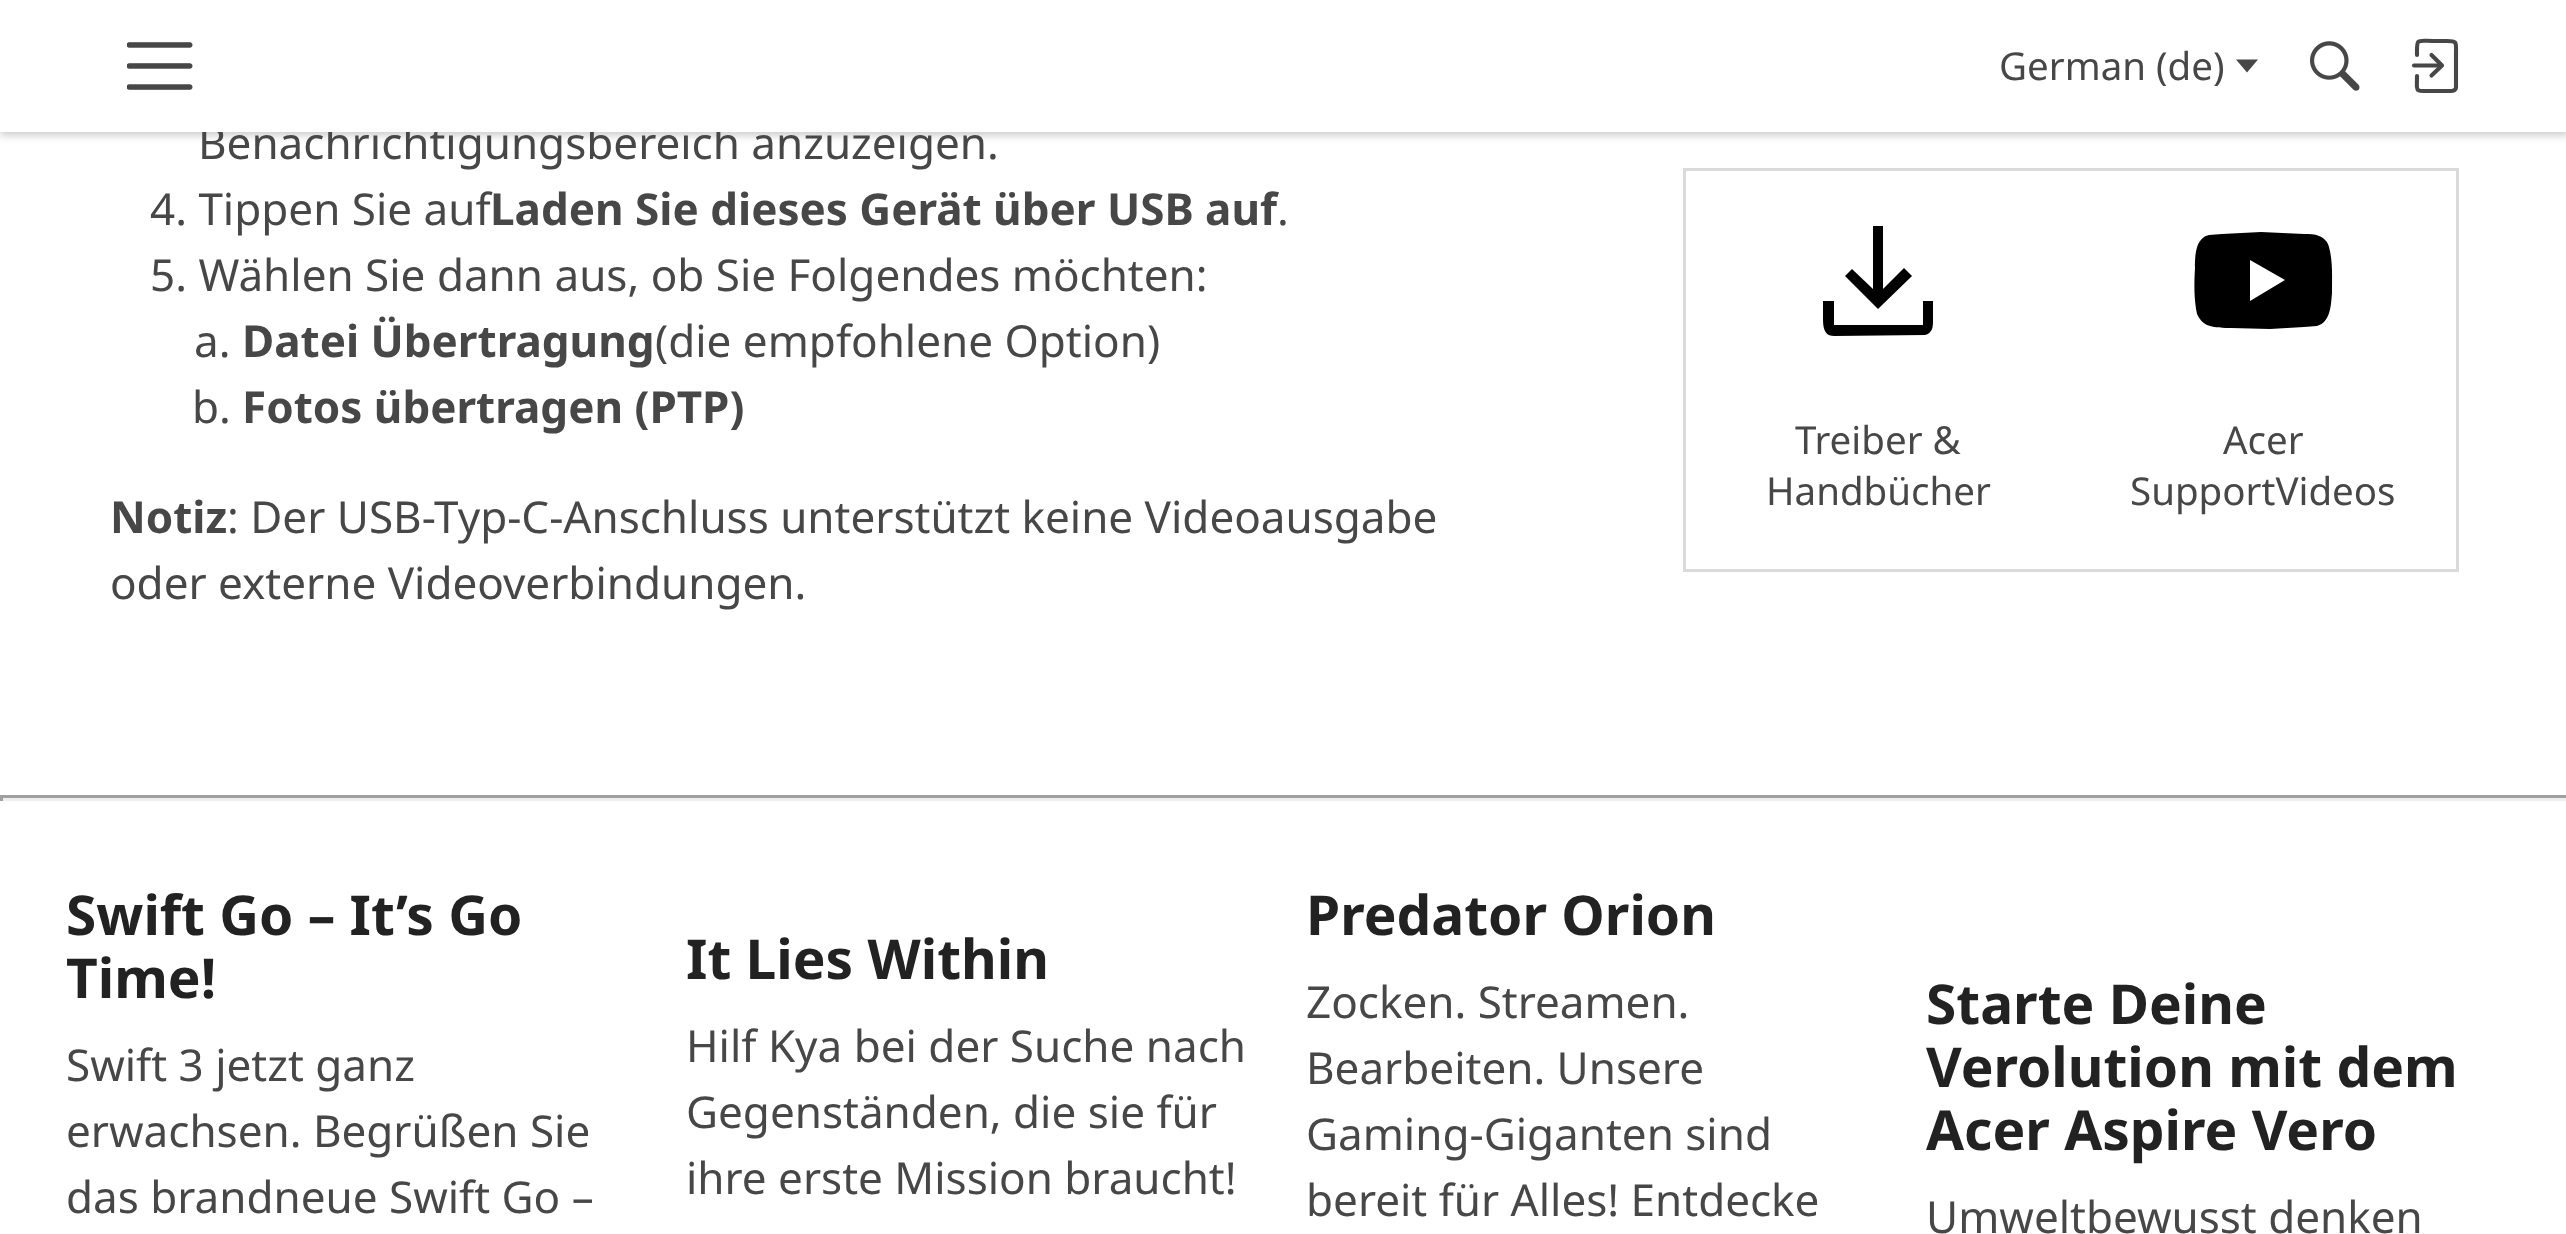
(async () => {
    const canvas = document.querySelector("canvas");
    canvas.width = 2566;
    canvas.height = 1234;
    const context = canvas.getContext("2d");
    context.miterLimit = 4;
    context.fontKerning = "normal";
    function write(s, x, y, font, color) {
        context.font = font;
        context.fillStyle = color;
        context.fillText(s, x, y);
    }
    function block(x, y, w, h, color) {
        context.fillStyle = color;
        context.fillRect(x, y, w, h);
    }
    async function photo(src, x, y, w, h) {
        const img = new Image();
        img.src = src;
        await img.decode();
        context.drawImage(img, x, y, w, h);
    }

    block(0, 0, 2566, 1234, "rgb(255, 255, 255)");
    context.fillStyle = "rgba(0, 0, 0, 0.22)";
    context.filter = "blur(4px)";
    context.beginPath();
    context.rect(0, 3, 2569, 132);
    context.fill();
    context.filter = "none";
    write("Benachrichtigungsbereich anzuzeigen.", 198, 159, "44px Noto Sans", "rgb(71, 71, 71)");
    block(0, 0, 2566, 132, "rgb(255, 255, 255)");
    await photo("media/1.png", 127, 42, 66, 48);
    write("German (de)", 1999, 80, "38.5px Noto Sans", "rgb(71, 71, 71)");
    context.beginPath();
    context.moveTo(2236, 59.5);
    context.lineTo(2258, 59.5);
    context.lineTo(2247, 72.5);
    context.closePath();
    context.fill();
    await photo("media/2.png", 2310, 41, 50, 50);
    context.beginPath();
    context.moveTo(2431.5, 75.5);
    context.lineTo(2442, 65.5);
    context.lineTo(2431.5, 55);
    context.strokeStyle = "rgb(71, 71, 71)";
    context.lineWidth = 4.1;
    context.lineCap = "round";
    context.lineJoin = "round";
    context.stroke();
    context.beginPath();
    context.moveTo(2441, 65.5);
    context.lineTo(2414, 65.5);
    context.lineJoin = "miter";
    context.stroke();
    context.beginPath();
    context.moveTo(2417, 55);
    context.bezierCurveTo(2417, 37, 2415.5, 41, 2436.5, 41);
    context.lineTo(2447, 41);
    context.bezierCurveTo(2457.5, 41, 2456, 42.5, 2456, 53);
    context.lineTo(2456, 87.5);
    context.bezierCurveTo(2455.5, 92, 2451, 91, 2448, 91);
    context.lineTo(2431.5, 91);
    context.bezierCurveTo(2414, 91, 2417, 92.5, 2417, 76);
    context.lineJoin = "round";
    context.stroke();
    write("4. Tippen Sie auf", 150, 225, "44px Noto Sans", "rgb(71, 71, 71)");
    write("Laden Sie dieses Gerät über USB auf", 490, 225, "bold 44px Noto Sans", "rgb(71, 71, 71)");
    write(".", 1277, 225, "44px Noto Sans", "rgb(71, 71, 71)");
    write("5. Wählen Sie dann aus, ob Sie Folgendes möchten:", 150, 291, "44px Noto Sans", "rgb(71, 71, 71)");
    write("a.", 194, 357, "44px Noto Sans", "rgb(71, 71, 71)");
    write("Datei Übertragung", 242, 357, "bold 44px Noto Sans", "rgb(71, 71, 71)");
    write("(die empfohlene Option)", 655, 357, "44px Noto Sans", "rgb(71, 71, 71)");
    write("b.", 192, 423, "44px Noto Sans", "rgb(71, 71, 71)");
    write("Fotos übertragen (PTP)", 242, 423, "bold 44px Noto Sans", "rgb(71, 71, 71)");
    write("Notiz", 110, 533, "bold 44px Noto Sans", "rgb(71, 71, 71)");
    write(": Der USB-Typ-C-Anschluss unterstützt keine Videoausgabe", 227, 533, "44px Noto Sans", "rgb(71, 71, 71)");
    write("oder externe Videoverbindungen.", 110, 599, "44px Noto Sans", "rgb(71, 71, 71)");
    context.strokeStyle = "rgb(218, 218, 218)";
    context.lineWidth = 3;
    context.lineJoin = "miter";
    context.strokeRect(1684.5, 169.5, 773, 401);
    context.fillStyle = "rgb(0, 0, 0)";
    context.beginPath();
    context.moveTo(1834, 336);
    context.bezierCurveTo(1823, 336, 1823, 325, 1823, 317);
    context.lineTo(1823, 301);
    context.lineTo(1834, 301);
    context.lineTo(1834, 325);
    context.lineTo(1923, 325);
    context.lineTo(1923, 301);
    context.lineTo(1933, 301);
    context.lineTo(1933, 317);
    context.bezierCurveTo(1933, 324, 1934, 333, 1925, 335);
    context.closePath();
    context.moveTo(1878, 309);
    context.lineTo(1845, 276);
    context.lineTo(1852, 269);
    context.lineTo(1873, 289);
    context.lineTo(1873, 226);
    context.lineTo(1883, 226);
    context.lineTo(1883, 289);
    context.lineTo(1904, 268);
    context.lineTo(1912, 276);
    context.closePath();
    context.fill();
    write("Treiber &", 1795, 454, "38.5px Noto Sans", "rgb(71, 71, 71)");
    write("Handbücher", 1766, 505, "38.5px Noto Sans", "rgb(71, 71, 71)");
    context.fillStyle = "rgb(0, 0, 0)";
    context.beginPath();
    context.moveTo(2329, 247);
    context.bezierCurveTo(2328, 242, 2324, 238, 2319, 236);
    context.bezierCurveTo(2315, 234, 2309, 234, 2304, 234);
    context.lineTo(2261, 232);
    context.lineTo(2222, 234);
    context.lineTo(2209, 235);
    context.bezierCurveTo(2195, 238, 2195, 257, 2195, 268);
    context.bezierCurveTo(2194, 283, 2194, 300, 2197, 314);
    context.bezierCurveTo(2199, 319, 2203, 323, 2207, 325);
    context.bezierCurveTo(2215, 328, 2224, 328, 2231, 328);
    context.lineTo(2270, 329);
    context.lineTo(2304, 327);
    context.lineTo(2317, 326);
    context.bezierCurveTo(2331, 322, 2331, 304, 2332, 293);
    context.bezierCurveTo(2332, 279, 2333, 261, 2329, 247);
    context.closePath();
    context.moveTo(2250, 301);
    context.lineTo(2250, 260);
    context.lineTo(2285, 280);
    context.closePath();
    context.fill();
    write("Acer", 2223, 454, "38.5px Noto Sans", "rgb(71, 71, 71)");
    write("SupportVideos", 2130, 505, "38.5px Noto Sans", "rgb(71, 71, 71)");
    block(0, 795, 2566, 3, "rgb(159, 159, 159)");
    block(0, 798, 2566, 3, "rgb(238, 238, 238)");
    block(0, 795, 3, 6, "rgb(159, 159, 159)");
    write("Swift Go – It’s Go", 66, 935, "bold 55px Noto Sans", "rgb(34, 34, 34)");
    write("Time!", 66, 998, "bold 55px Noto Sans", "rgb(34, 34, 34)");
    write("Swift 3 jetzt ganz", 66, 1081, "44px Noto Sans", "rgb(71, 71, 71)");
    write("erwachsen. Begrüßen Sie", 66, 1147, "44px Noto Sans", "rgb(71, 71, 71)");
    write("das brandneue Swift Go –", 66, 1213, "44px Noto Sans", "rgb(71, 71, 71)");
    write("It Lies Within", 686, 979, "bold 55px Noto Sans", "rgb(34, 34, 34)");
    write("Hilf Kya bei der Suche nach", 686, 1062, "44px Noto Sans", "rgb(71, 71, 71)");
    write("Gegenständen, die sie für", 686, 1128, "44px Noto Sans", "rgb(71, 71, 71)");
    write("ihre erste Mission braucht!", 686, 1194, "44px Noto Sans", "rgb(71, 71, 71)");
    write("Predator Orion", 1306, 935, "bold 55px Noto Sans", "rgb(34, 34, 34)");
    write("Zocken. Streamen.", 1306, 1018, "44px Noto Sans", "rgb(71, 71, 71)");
    write("Bearbeiten. Unsere", 1306, 1084, "44px Noto Sans", "rgb(71, 71, 71)");
    write("Gaming-Giganten sind", 1306, 1150, "44px Noto Sans", "rgb(71, 71, 71)");
    write("bereit für Alles! Entdecke", 1306, 1216, "44px Noto Sans", "rgb(71, 71, 71)");
    write("Starte Deine", 1926, 1024, "bold 55px Noto Sans", "rgb(34, 34, 34)");
    write("Verolution mit dem", 1926, 1087, "bold 55px Noto Sans", "rgb(34, 34, 34)");
    write("Acer Aspire Vero", 1926, 1150, "bold 55px Noto Sans", "rgb(34, 34, 34)");
    write("Umweltbewusst denken", 1926, 1233, "44px Noto Sans", "rgb(71, 71, 71)");
})();
